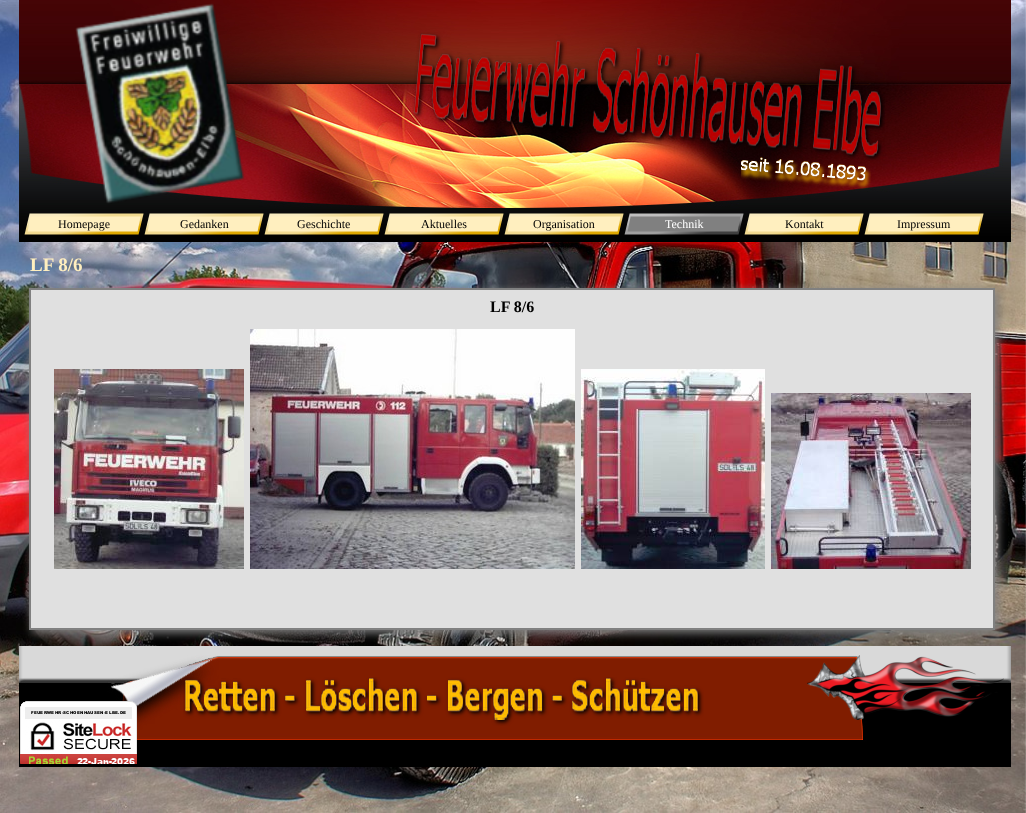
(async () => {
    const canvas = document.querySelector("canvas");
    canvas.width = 1026;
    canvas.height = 813;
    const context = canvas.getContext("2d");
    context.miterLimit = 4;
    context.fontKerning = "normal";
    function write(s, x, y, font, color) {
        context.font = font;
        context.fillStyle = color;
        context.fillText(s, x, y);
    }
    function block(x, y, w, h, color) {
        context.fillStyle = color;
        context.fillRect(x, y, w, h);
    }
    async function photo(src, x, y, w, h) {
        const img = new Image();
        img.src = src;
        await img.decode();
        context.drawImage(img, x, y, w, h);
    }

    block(0, 0, 1026, 813, "rgb(255, 255, 255)");
    await photo("media/1.png", 0, 0, 1026, 813);
    await photo("media/2.png", 19, 0, 992, 242);
    await photo("media/3.png", 75, 3, 170, 201);
    await photo("media/4.png", 412, 32, 473, 129);
    await photo("media/5.png", 741, 157, 130, 32);
    await photo("media/6.png", 24, 213, 120, 22);
    write("Homepage", 58, 228, "12px Liberation Serif", "rgb(0, 0, 0)");
    await photo("media/6.png", 144, 213, 120, 22);
    write("Gedanken", 180, 228, "12px Liberation Serif", "rgb(0, 0, 0)");
    await photo("media/6.png", 264, 213, 120, 22);
    write("Geschichte", 297, 228, "12px Liberation Serif", "rgb(0, 0, 0)");
    await photo("media/6.png", 384, 213, 120, 22);
    write("Aktuelles", 421, 228, "12px Liberation Serif", "rgb(0, 0, 0)");
    await photo("media/6.png", 504, 213, 120, 22);
    write("Organisation", 533, 228, "12px Liberation Serif", "rgb(0, 0, 0)");
    await photo("media/7.png", 624, 213, 120, 22);
    write("Technik", 665, 228, "12px Liberation Serif", "rgb(255, 255, 255)");
    await photo("media/6.png", 744, 213, 120, 22);
    write("Kontakt", 785, 228, "12px Liberation Serif", "rgb(0, 0, 0)");
    await photo("media/6.png", 864, 213, 120, 22);
    write("Impressum", 897, 228, "12px Liberation Serif", "rgb(0, 0, 0)");
    write("LF 8/6", 30, 271, "bold 19px Liberation Serif", "rgb(255, 239, 191)");
    block(31, 290, 962, 338, "rgb(224, 224, 224)");
    await photo("media/12.png", 19, 646, 992, 121);
    context.save();
    context.beginPath();
    context.moveTo(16, 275);
    context.lineTo(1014, 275);
    context.lineTo(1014, 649);
    context.lineTo(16, 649);
    context.closePath();
    context.moveTo(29, 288);
    context.lineTo(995, 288);
    context.lineTo(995, 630);
    context.lineTo(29, 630);
    context.closePath();
    context.clip("evenodd");
    context.fillStyle = "rgb(128, 128, 128)";
    context.filter = "blur(5px)";
    context.beginPath();
    context.rect(32, 291, 966, 342);
    context.fill();
    context.filter = "none";
    context.restore();
    context.strokeStyle = "rgb(128, 128, 128)";
    context.lineWidth = 2;
    context.strokeRect(30, 289, 964, 340);
    write("LF 8/6", 490, 312, "bold 16px Liberation Serif", "rgb(0, 0, 0)");
    await photo("media/8.png", 54, 369, 190, 200);
    await photo("media/9.png", 250, 329, 325, 240);
    await photo("media/10.png", 581, 369, 184, 200);
    await photo("media/11.png", 771, 393, 200, 176);
    await photo("media/13.png", 20, 701, 117, 63);
    await photo("media/14.png", 183, 677, 521, 49);
    await photo("media/15.png", 807, 655, 197, 65);
})();
